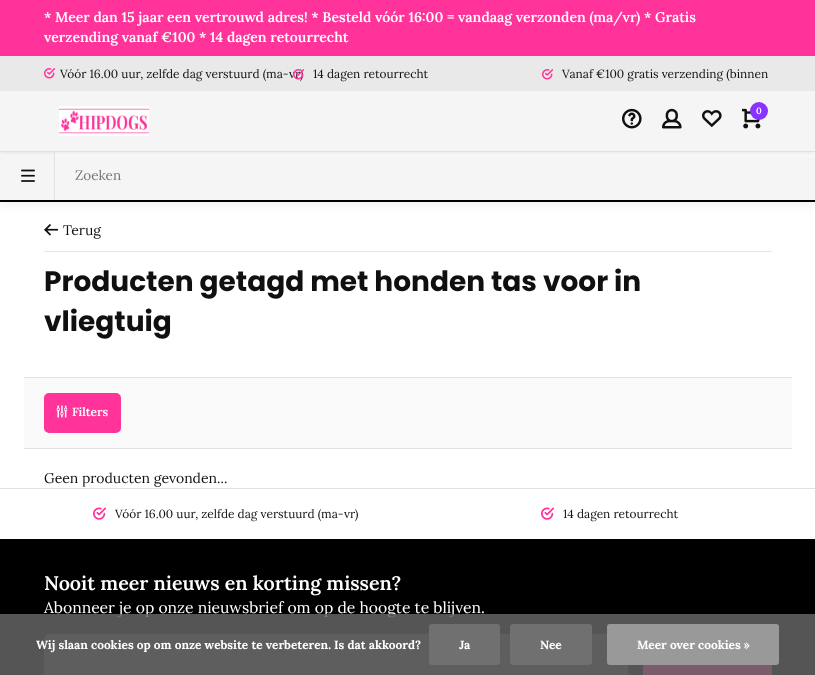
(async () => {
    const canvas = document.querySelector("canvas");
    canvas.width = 815;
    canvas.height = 675;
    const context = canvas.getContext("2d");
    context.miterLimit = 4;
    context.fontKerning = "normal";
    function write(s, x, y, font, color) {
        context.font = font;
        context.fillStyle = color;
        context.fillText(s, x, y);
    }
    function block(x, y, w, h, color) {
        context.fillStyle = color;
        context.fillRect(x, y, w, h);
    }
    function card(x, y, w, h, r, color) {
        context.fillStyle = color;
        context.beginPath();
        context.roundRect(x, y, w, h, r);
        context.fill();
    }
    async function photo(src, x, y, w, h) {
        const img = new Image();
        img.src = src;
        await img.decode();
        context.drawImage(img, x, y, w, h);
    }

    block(0, 0, 815, 675, "rgb(255, 255, 255)");
    block(0, 0, 815, 56, "rgb(255, 51, 153)");
    write("* Meer dan 15 jaar een vertrouwd adres! * Besteld vóór 16:00 = vandaag verzonden (ma/vr) * Gratis", 44, 22, "600 14px Lora", "rgb(255, 255, 255)");
    write("verzending vanaf €100 * 14 dagen retourrecht", 44, 42, "600 14px Lora", "rgb(255, 255, 255)");
    context.fillStyle = "rgba(0, 0, 0, 0.05)";
    context.filter = "blur(5px)";
    context.beginPath();
    context.rect(0, 96, 815, 110);
    context.fill();
    context.filter = "none";
    block(0, 91, 815, 109, "rgb(245, 245, 245)");
    context.save();
    context.beginPath();
    context.rect(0, 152, 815, 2);
    context.clip();
    context.fillStyle = "rgba(0, 0, 0, 0.05)";
    context.filter = "blur(2px)";
    context.beginPath();
    context.rect(0, 94, 815, 60);
    context.fill();
    context.filter = "none";
    context.restore();
    block(0, 56, 815, 35, "rgb(233, 233, 233)");
    await photo("media/1.png", 44, 68, 12, 11);
    write("Vóór 16.00 uur, zelfde dag verstuurd (ma-vr)", 60, 78, "11.9px Lora", "rgb(16, 16, 16)");
    await photo("media/2.png", 293, 69, 12, 11);
    write("14 dagen retourrecht", 313, 78, "11.9px Lora", "rgb(16, 16, 16)");
    await photo("media/1.png", 542, 69, 12, 11);
    write("Vanaf €100 gratis verzending (binnen", 562, 78, "11.9px Lora", "rgb(16, 16, 16)");
    await photo("media/3.png", 59, 106, 90, 30);
    await photo("media/4.png", 622, 108, 20, 21);
    await photo("media/5.png", 662, 108, 20, 21);
    await photo("media/6.png", 702, 110, 20, 18);
    await photo("media/7.png", 742, 108, 19, 21);
    context.fillStyle = "rgb(136, 51, 255)";
    context.beginPath();
    context.arc(759, 111, 9, 0, Math.PI * 2);
    context.fill();
    write("0", 756, 114, "600 9px Lora", "rgb(255, 255, 255)");
    block(0, 151, 815, 1, "rgb(225, 225, 225)");
    await photo("media/8.png", 21, 169, 14, 13);
    block(54, 152, 1, 48, "rgb(225, 225, 225)");
    block(55, 152, 760, 6, "rgba(255, 255, 255, 0.25)");
    block(0, 200, 815, 2, "rgb(0, 0, 0)");
    write("Zoeken", 75, 180, "13.5px Lora", "rgb(117, 117, 117)");
    block(44, 251, 728, 1, "rgb(230, 230, 230)");
    await photo("media/9.png", 44, 224, 14, 12);
    write("Terug", 63, 235, "14px Lora", "rgb(16, 16, 16)");
    write("Producten getagd met honden tas voor in", 44, 291, "bold 28px Poppins", "rgb(16, 16, 16)");
    write("vliegtuig", 44, 331, "bold 28px Poppins", "rgb(16, 16, 16)");
    block(24, 378, 768, 70, "rgb(249, 249, 250)");
    block(24, 377, 768, 1, "rgb(225, 225, 225)");
    block(24, 448, 768, 1, "rgb(225, 225, 225)");
    context.fillStyle = "rgb(255, 51, 153)";
    context.beginPath();
    context.roundRect(45, 394, 75, 38, 4);
    context.fill();
    context.strokeStyle = "rgb(255, 51, 153)";
    context.lineWidth = 2;
    context.stroke();
    await photo("media/10.png", 56, 405, 12, 13);
    write("Filters", 72, 416, "600 11.9px Lora", "rgb(255, 255, 255)");
    write("Geen producten gevonden...", 44, 483, "14px Lora", "rgb(16, 16, 16)");
    block(0, 488, 815, 1, "rgb(225, 225, 225)");
    await photo("media/11.png", 93, 507, 14, 13);
    write("Vóór 16.00 uur, zelfde dag verstuurd (ma-vr)", 115, 518, "11.9px Lora", "rgb(16, 16, 16)");
    await photo("media/11.png", 541, 507, 14, 13);
    write("14 dagen retourrecht", 563, 518, "11.9px Lora", "rgb(16, 16, 16)");
    block(0, 539, 815, 136, "rgb(0, 0, 0)");
    write("Nooit meer nieuws en korting missen?", 44, 590, "600 19.6px Lora", "rgb(255, 255, 255)");
    write("Abonneer je op onze nieuwsbrief om op de hoogte te blijven.", 44, 613, "15.7px Lora", "rgb(255, 255, 255)");
    card(44, 634, 584, 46, 5, "rgb(64, 64, 64)");
    block(645, 665, 125, 10, "rgb(255, 51, 153)");
    context.strokeRect(644, 635, 127, 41);
    block(0, 614, 815, 61, "rgba(100, 100, 100, 0.85)");
    write("Wij slaan cookies op om onze website te verbeteren. Is dat akkoord?", 36, 649, "bold 11.9px Lora", "rgb(255, 255, 255)");
    card(429, 624, 71, 41, 3, "rgb(112, 112, 112)");
    write("Ja", 459, 649, "bold 11.9px Lora", "rgb(255, 255, 255)");
    card(510, 624, 82, 41, 3, "rgb(112, 112, 112)");
    write("Nee", 540, 649, "bold 11.9px Lora", "rgb(255, 255, 255)");
    card(607, 624, 172, 41, 3, "rgb(153, 153, 153)");
    write("Meer over cookies »", 637, 649, "bold 11.9px Lora", "rgb(255, 255, 255)");
})();
